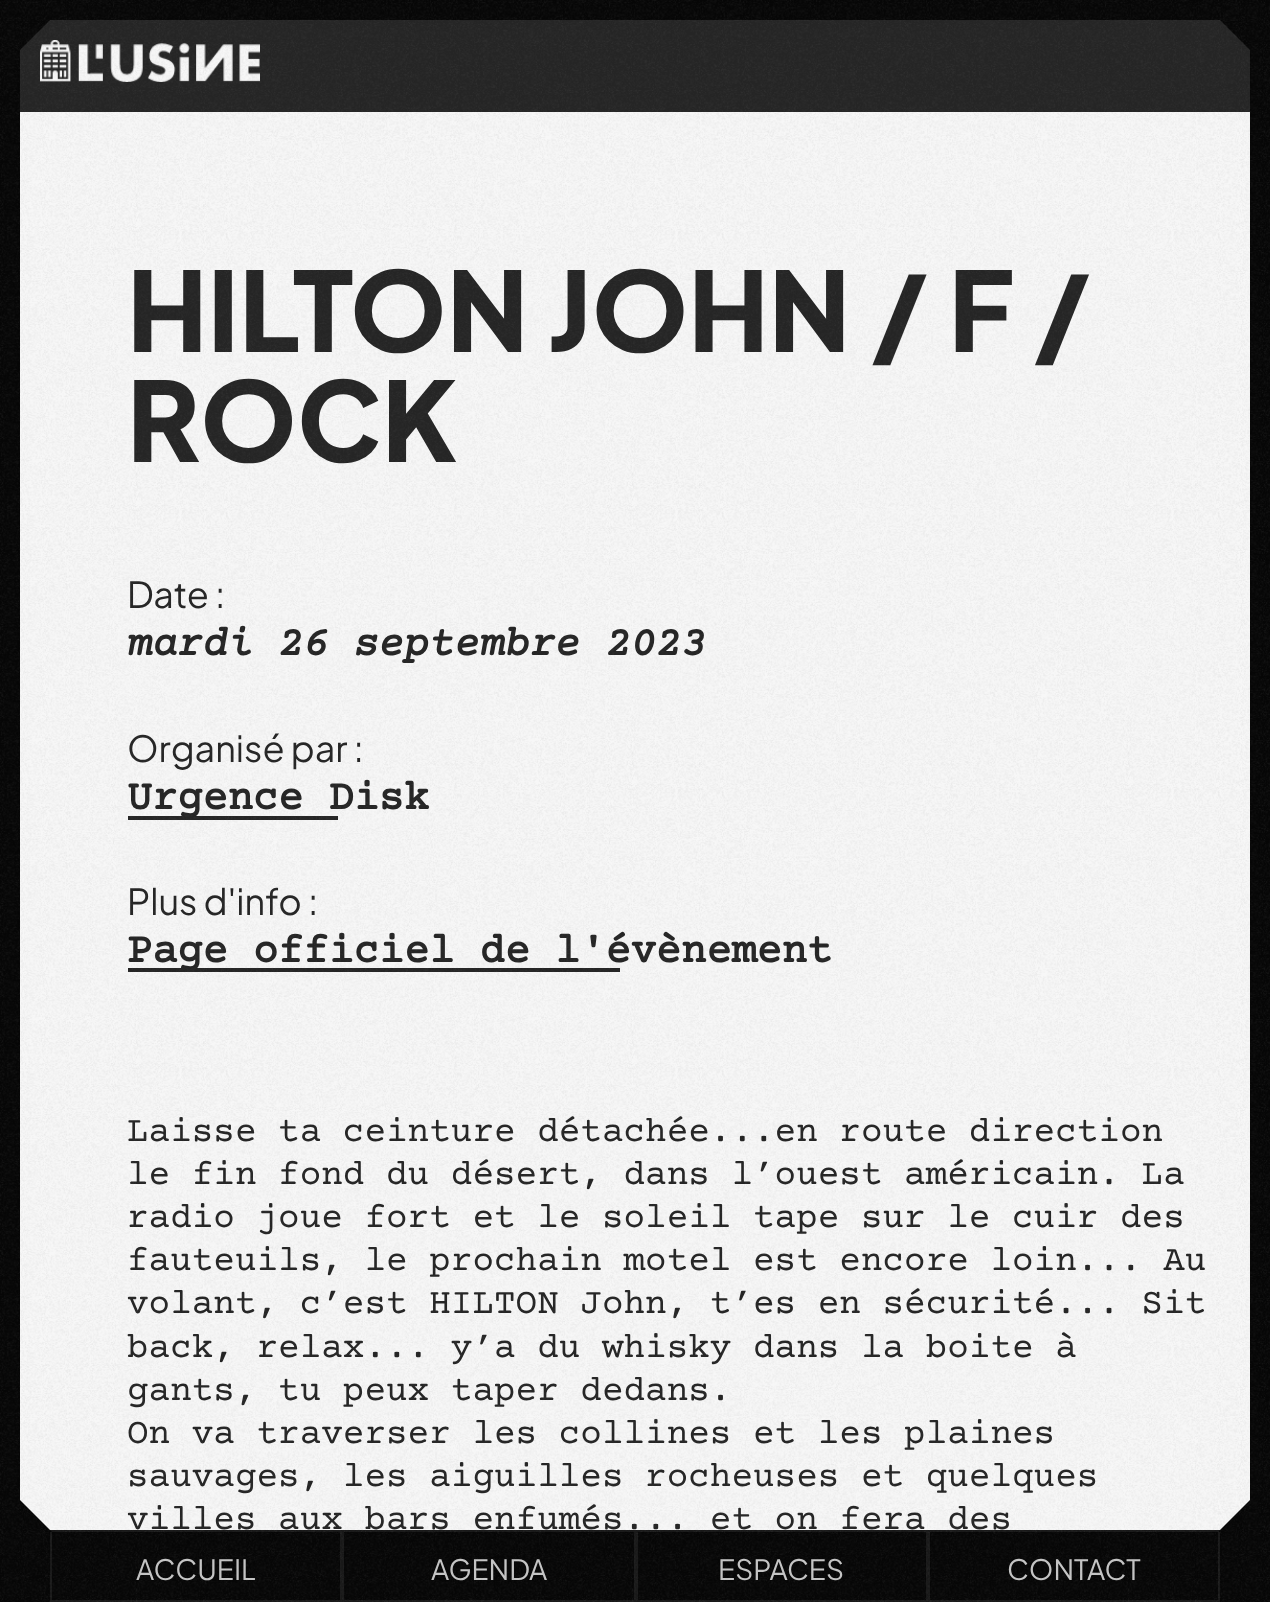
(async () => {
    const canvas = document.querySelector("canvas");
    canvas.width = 1270;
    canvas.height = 1602;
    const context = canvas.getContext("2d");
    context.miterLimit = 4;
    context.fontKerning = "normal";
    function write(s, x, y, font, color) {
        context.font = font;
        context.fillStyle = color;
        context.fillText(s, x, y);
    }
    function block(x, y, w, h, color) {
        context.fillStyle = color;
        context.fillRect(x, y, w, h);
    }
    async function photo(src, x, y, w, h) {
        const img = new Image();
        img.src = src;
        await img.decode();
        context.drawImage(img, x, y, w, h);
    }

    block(0, 0, 1270, 1602, "rgb(33, 33, 33)");
    block(20, 112, 1230, 1418, "rgb(255, 255, 255)");
    write("HILTON JOHN / F /", 127, 352, "800 110px Plus Jakarta Sans", "rgb(33, 33, 33)");
    write("ROCK", 127, 462, "800 110px Plus Jakarta Sans", "rgb(33, 33, 33)");
    write("Date :", 127, 608, "36px Plus Jakarta Sans", "rgb(33, 33, 33)");
    write("mardi 26 septembre 2023", 127, 655, "italic bold 42px Courier Prime", "rgb(33, 33, 33)");
    write("Organisé par :", 127, 762, "36px Plus Jakarta Sans", "rgb(33, 33, 33)");
    write("Urgence Disk", 127, 809, "bold 42px Courier Prime", "rgb(33, 33, 33)");
    block(128, 816, 210, 4, "rgb(33, 33, 33)");
    write("Plus d'info :", 127, 915, "36px Plus Jakarta Sans", "rgb(33, 33, 33)");
    write("Page officiel de l'évènement", 127, 962, "bold 42px Courier Prime", "rgb(33, 33, 33)");
    block(128, 968, 492, 4, "rgb(33, 33, 33)");
    write("Laisse ta ceinture détachée...en route direction", 127, 1141, "36px Courier Prime", "rgb(33, 33, 33)");
    write("le fin fond du désert, dans l’ouest américain. La", 127, 1184, "36px Courier Prime", "rgb(33, 33, 33)");
    write("radio joue fort et le soleil tape sur le cuir des", 127, 1227, "36px Courier Prime", "rgb(33, 33, 33)");
    write("fauteuils, le prochain motel est encore loin... Au", 127, 1270, "36px Courier Prime", "rgb(33, 33, 33)");
    write("volant, c’est HILTON John, t’es en sécurité... Sit", 127, 1313, "36px Courier Prime", "rgb(33, 33, 33)");
    write("back, relax... y’a du whisky dans la boite à", 127, 1357, "36px Courier Prime", "rgb(33, 33, 33)");
    write("gants, tu peux taper dedans.", 127, 1400, "36px Courier Prime", "rgb(33, 33, 33)");
    write("On va traverser les collines et les plaines", 127, 1443, "36px Courier Prime", "rgb(33, 33, 33)");
    write("sauvages, les aiguilles rocheuses et quelques", 127, 1486, "36px Courier Prime", "rgb(33, 33, 33)");
    write("villes aux bars enfumés... et on fera des", 127, 1529, "36px Courier Prime", "rgb(33, 33, 33)");
    await photo("media/2.png", 40, 40, 220, 42);
    context.strokeStyle = "rgb(0, 0, 0)";
    context.lineWidth = 20;
    context.strokeRect(10, 10, 1250, 1582);
    context.fillStyle = "rgb(0, 0, 0)";
    context.beginPath();
    context.moveTo(20, 50);
    context.lineTo(20, 20);
    context.lineTo(50, 20);
    context.closePath();
    context.fill();
    context.beginPath();
    context.moveTo(1220, 20);
    context.lineTo(1250, 20);
    context.lineTo(1250, 50);
    context.closePath();
    context.fill();
    block(20, 1530, 1230, 52, "rgb(0, 0, 0)");
    context.strokeStyle = "rgb(20, 20, 20)";
    context.lineWidth = 2;
    context.strokeRect(51, 1531, 290, 70);
    context.beginPath();
    context.moveTo(20, 1500);
    context.lineTo(20, 1532);
    context.lineTo(52, 1532);
    context.closePath();
    context.fill();
    context.strokeRect(929, 1531, 290, 70);
    context.save();
    context.beginPath();
    context.rect(1218, 1500, 32, 32);
    context.clip();
    context.beginPath();
    context.moveTo(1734, 1016);
    context.lineTo(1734, 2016);
    context.lineTo(734, 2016);
    context.closePath();
    context.fill();
    context.restore();
    write("ACCUEIL", 136, 1580, "28px Plus Jakarta Sans", "rgb(204, 204, 204)");
    context.strokeRect(343, 1531, 292, 70);
    write("AGENDA", 431, 1580, "28px Plus Jakarta Sans", "rgb(204, 204, 204)");
    context.strokeRect(637, 1531, 290, 70);
    write("ESPACES", 718, 1580, "28px Plus Jakarta Sans", "rgb(204, 204, 204)");
    write("CONTACT", 1007, 1580, "28px Plus Jakarta Sans", "rgb(204, 204, 204)");
    await photo("media/1.png", 0, 0, 1270, 1602);
})();
